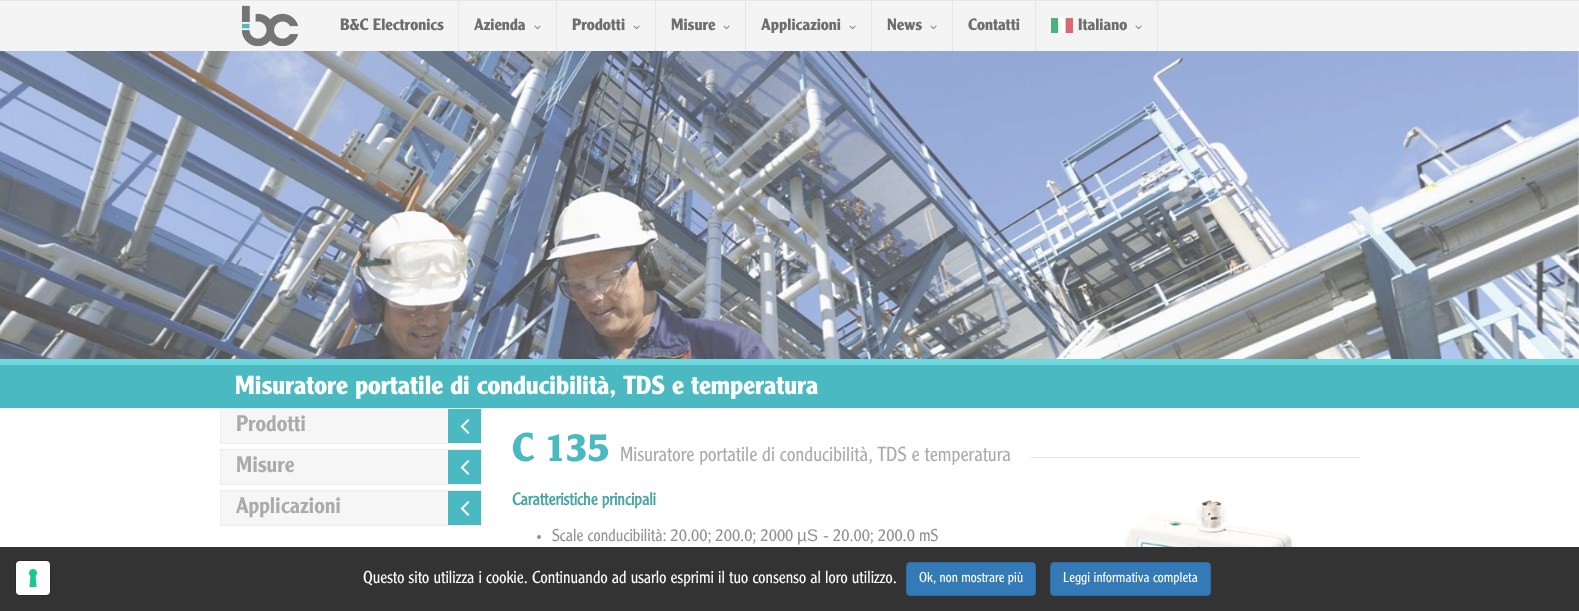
(async () => {
    const canvas = document.querySelector("canvas");
    canvas.width = 1579;
    canvas.height = 611;
    const context = canvas.getContext("2d");
    context.miterLimit = 4;
    context.fontKerning = "normal";
    function write(s, x, y, font, color) {
        context.font = font;
        context.fillStyle = color;
        context.fillText(s, x, y);
    }
    function block(x, y, w, h, color) {
        context.fillStyle = color;
        context.fillRect(x, y, w, h);
    }
    function card(x, y, w, h, r, color) {
        context.fillStyle = color;
        context.beginPath();
        context.roundRect(x, y, w, h, r);
        context.fill();
    }
    async function photo(src, x, y, w, h) {
        const img = new Image();
        img.src = src;
        await img.decode();
        context.drawImage(img, x, y, w, h);
    }

    block(0, 0, 1579, 611, "rgb(255, 255, 255)");
    block(0, 1, 1579, 50, "rgb(244, 244, 244)");
    block(0, 0, 1579, 1, "rgb(231, 231, 231)");
    await photo("media/1.png", 241, 5, 57, 41);
    block(458, 0, 1, 51, "rgb(231, 231, 231)");
    write("B&C Electronics", 340, 30, "bold 16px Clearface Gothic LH", "rgb(110, 110, 110)");
    block(556, 0, 1, 51, "rgb(231, 231, 231)");
    write("Azienda", 474, 30, "bold 16px Clearface Gothic LH", "rgb(110, 110, 110)");
    await photo("media/2.png", 534, 25, 7, 5);
    block(655, 0, 1, 51, "rgb(231, 231, 231)");
    write("Prodotti", 572, 30, "bold 16px Clearface Gothic LH", "rgb(110, 110, 110)");
    await photo("media/2.png", 633, 25, 7, 5);
    block(745, 0, 1, 51, "rgb(231, 231, 231)");
    write("Misure", 671, 30, "bold 16px Clearface Gothic LH", "rgb(110, 110, 110)");
    await photo("media/2.png", 723, 25, 7, 5);
    block(871, 0, 1, 51, "rgb(231, 231, 231)");
    write("Applicazioni", 761, 30, "bold 16px Clearface Gothic LH", "rgb(110, 110, 110)");
    await photo("media/2.png", 849, 25, 7, 5);
    block(952, 0, 1, 51, "rgb(231, 231, 231)");
    write("News", 887, 30, "bold 16px Clearface Gothic LH", "rgb(110, 110, 110)");
    await photo("media/2.png", 930, 25, 7, 5);
    block(1035, 0, 1, 51, "rgb(231, 231, 231)");
    write("Contatti", 968, 30, "bold 16px Clearface Gothic LH", "rgb(110, 110, 110)");
    block(1157, 0, 1, 51, "rgb(231, 231, 231)");
    await photo("media/3.png", 1051, 18, 22, 15);
    write("Italiano", 1078, 30, "bold 16px Clearface Gothic LH", "rgb(110, 110, 110)");
    await photo("media/2.png", 1135, 25, 7, 5);
    await photo("media/4.png", 0, 51, 1579, 308);
    block(0, 365, 1579, 43, "rgb(74, 185, 194)");
    block(0, 359, 1579, 6, "rgb(109, 217, 222)");
    write("Misuratore portatile di conducibilità, TDS e temperatura", 235, 394, "bold 25.5px Clearface Gothic LH", "rgb(255, 255, 255)");
    context.strokeStyle = "rgb(237, 237, 237)";
    context.strokeRect(220.5, 408.5, 261, 35);
    block(221, 409, 227, 34, "rgb(246, 246, 246)");
    write("Prodotti", 236, 431, "500 22px Clearface Gothic LH", "rgb(171, 171, 171)");
    block(448, 409, 33, 34, "rgb(74, 185, 194)");
    await photo("media/5.png", 460, 419, 10, 15);
    context.strokeRect(220.5, 449.5, 261, 35);
    block(221, 450, 227, 34, "rgb(246, 246, 246)");
    write("Misure", 236, 472, "500 22px Clearface Gothic LH", "rgb(171, 171, 171)");
    block(448, 450, 33, 34, "rgb(74, 185, 194)");
    await photo("media/5.png", 460, 460, 10, 15);
    context.strokeRect(220.5, 490.5, 261, 35);
    block(221, 491, 227, 34, "rgb(246, 246, 246)");
    write("Applicazioni", 236, 513, "500 22px Clearface Gothic LH", "rgb(171, 171, 171)");
    block(448, 491, 33, 34, "rgb(74, 185, 194)");
    await photo("media/5.png", 460, 501, 10, 15);
    write("C 135", 512, 461, "bold 39px Clearface Gothic LH", "rgb(74, 185, 194)");
    write("Misuratore portatile di conducibilità, TDS e temperatura", 620, 461, "300 20px Clearface Gothic LH", "rgb(171, 171, 171)");
    block(1031, 457, 329, 1, "rgb(231, 231, 231)");
    write("Caratteristiche principali", 512, 505, "bold 17px 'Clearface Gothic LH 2'", "rgb(74, 165, 165)");
    await photo("media/6.png", 1124, 500, 173, 47);
    context.fillStyle = "rgb(146, 146, 146)";
    context.beginPath();
    context.arc(539, 537, 2, 0, Math.PI * 2);
    context.fill();
    write("Scale conducibilità: 20.00; 200.0; 2000", 552, 541, "300 17px Clearface Gothic LH", "rgb(146, 146, 146)");
    write("µS", 797, 541, "17px Liberation Sans", "rgb(146, 146, 146)");
    write("- 20.00; 200.0 mS", 823, 541, "300 17px Clearface Gothic LH", "rgb(146, 146, 146)");
    block(0, 547, 1579, 64, "rgb(51, 51, 51)");
    context.beginPath();
    context.roundRect(15.5, 560.5, 35, 35, 4.5);
    context.strokeStyle = "rgb(43, 43, 43)";
    context.stroke();
    card(16, 561, 34, 34, 4, "rgb(255, 255, 255)");
    await photo("media/7.png", 29, 569, 8, 18);
    write("Questo sito utilizza i cookie. Continuando ad usarlo esprimi il tuo consenso al loro utilizzo.", 363, 583, "300 17px Clearface Gothic LH", "rgb(255, 255, 255)");
    context.fillStyle = "rgb(51, 122, 183)";
    context.beginPath();
    context.roundRect(906.5, 562.5, 129, 33, 3.5);
    context.fill();
    context.strokeStyle = "rgb(46, 109, 164)";
    context.stroke();
    write("Ok, non mostrare più", 919, 582, "300 14px Clearface Gothic LH", "rgb(255, 255, 255)");
    context.fillStyle = "rgb(51, 122, 183)";
    context.beginPath();
    context.roundRect(1050.5, 562.5, 160, 33, 3.5);
    context.fill();
    context.stroke();
    write("Leggi informativa completa", 1063, 582, "300 14px Clearface Gothic LH", "rgb(255, 255, 255)");
})();
